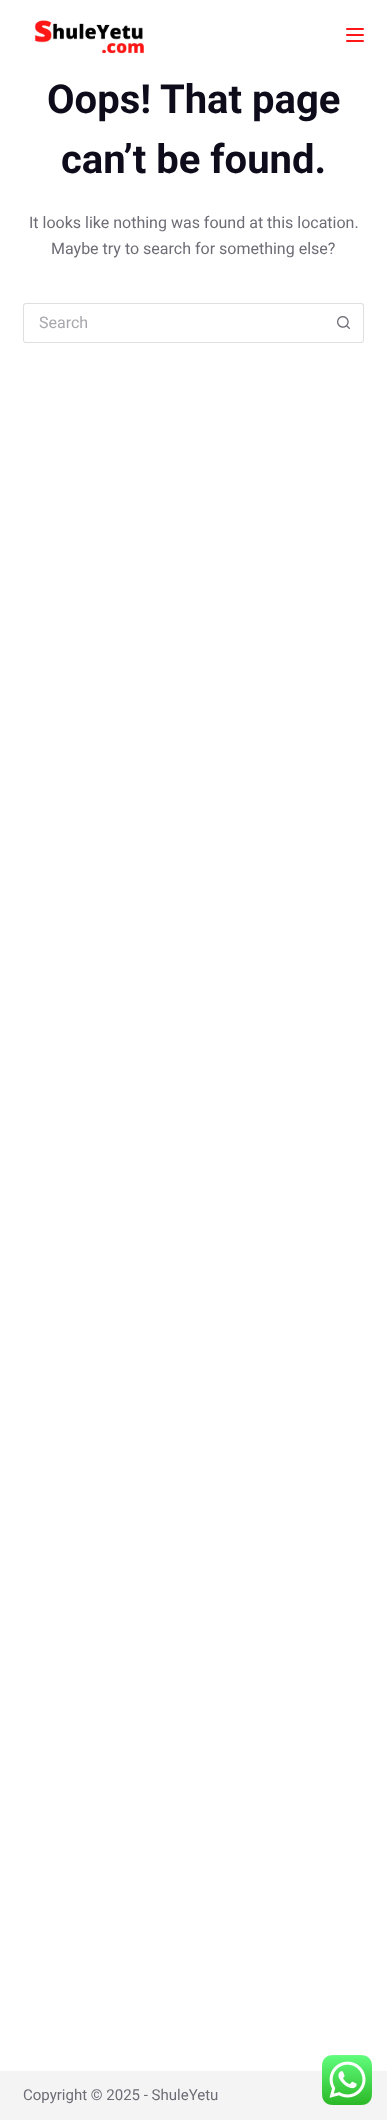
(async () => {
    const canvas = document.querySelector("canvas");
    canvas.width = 387;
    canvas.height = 2120;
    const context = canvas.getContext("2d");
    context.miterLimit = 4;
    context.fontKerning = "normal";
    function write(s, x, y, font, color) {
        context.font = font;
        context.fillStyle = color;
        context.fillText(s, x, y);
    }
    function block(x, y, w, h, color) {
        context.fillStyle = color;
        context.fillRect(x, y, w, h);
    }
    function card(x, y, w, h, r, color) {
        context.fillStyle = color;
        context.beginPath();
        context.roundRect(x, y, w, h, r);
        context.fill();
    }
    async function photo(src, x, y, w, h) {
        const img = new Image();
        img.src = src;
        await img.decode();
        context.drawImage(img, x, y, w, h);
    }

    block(0, 0, 387, 2120, "rgb(255, 255, 255)");
    await photo("media/1.png", 34, 20, 110, 34);
    card(346, 28, 18, 2, 1, "rgb(255, 22, 22)");
    card(346, 34, 18, 2, 1, "rgb(255, 22, 22)");
    card(346, 40, 18, 2, 1, "rgb(255, 22, 22)");
    write("Oops! That page", 47, 113, "bold 40px Roboto", "rgb(14, 12, 27)");
    write("can’t be found.", 61, 173, "bold 40px Roboto", "rgb(14, 12, 27)");
    write("It looks like nothing was found at this location.", 29, 228, "16px Roboto", "rgb(110, 109, 118)");
    write("Maybe try to search for something else?", 51, 254, "16px Roboto", "rgb(110, 109, 118)");
    context.fillStyle = "rgb(223, 223, 226)";
    context.beginPath();
    context.moveTo(26, 303);
    context.lineTo(324, 303);
    context.lineTo(324, 343);
    context.lineTo(26, 343);
    context.bezierCurveTo(24, 343, 23, 342, 23, 340);
    context.lineTo(23, 306);
    context.bezierCurveTo(23, 304, 24, 303, 26, 303);
    context.closePath();
    context.moveTo(26, 304);
    context.lineTo(324, 304);
    context.lineTo(324, 342);
    context.lineTo(26, 342);
    context.bezierCurveTo(25, 342, 24, 341, 24, 340);
    context.lineTo(24, 306);
    context.bezierCurveTo(24, 305, 25, 304, 26, 304);
    context.closePath();
    context.fill("evenodd");
    write("Search", 39, 328, "16px Roboto", "rgb(168, 167, 173)");
    context.fillStyle = "rgb(223, 223, 226)";
    context.beginPath();
    context.moveTo(324, 303);
    context.lineTo(361, 303);
    context.bezierCurveTo(363, 303, 364, 304, 364, 306);
    context.lineTo(364, 340);
    context.bezierCurveTo(364, 342, 363, 343, 361, 343);
    context.lineTo(324, 343);
    context.closePath();
    context.moveTo(324, 304);
    context.lineTo(361, 304);
    context.bezierCurveTo(362, 304, 363, 305, 363, 306);
    context.lineTo(363, 340);
    context.bezierCurveTo(363, 341, 362, 342, 361, 342);
    context.lineTo(324, 342);
    context.closePath();
    context.fill("evenodd");
    await photo("media/2.png", 337, 316, 13, 13);
    block(0, 2071, 387, 49, "rgb(244, 244, 245)");
    write("Copyright © 2025 - ShuleYetu", 23, 2100, "15px Roboto", "rgb(110, 109, 118)");
    await photo("media/3.png", 322, 2055, 50, 50);
})();
